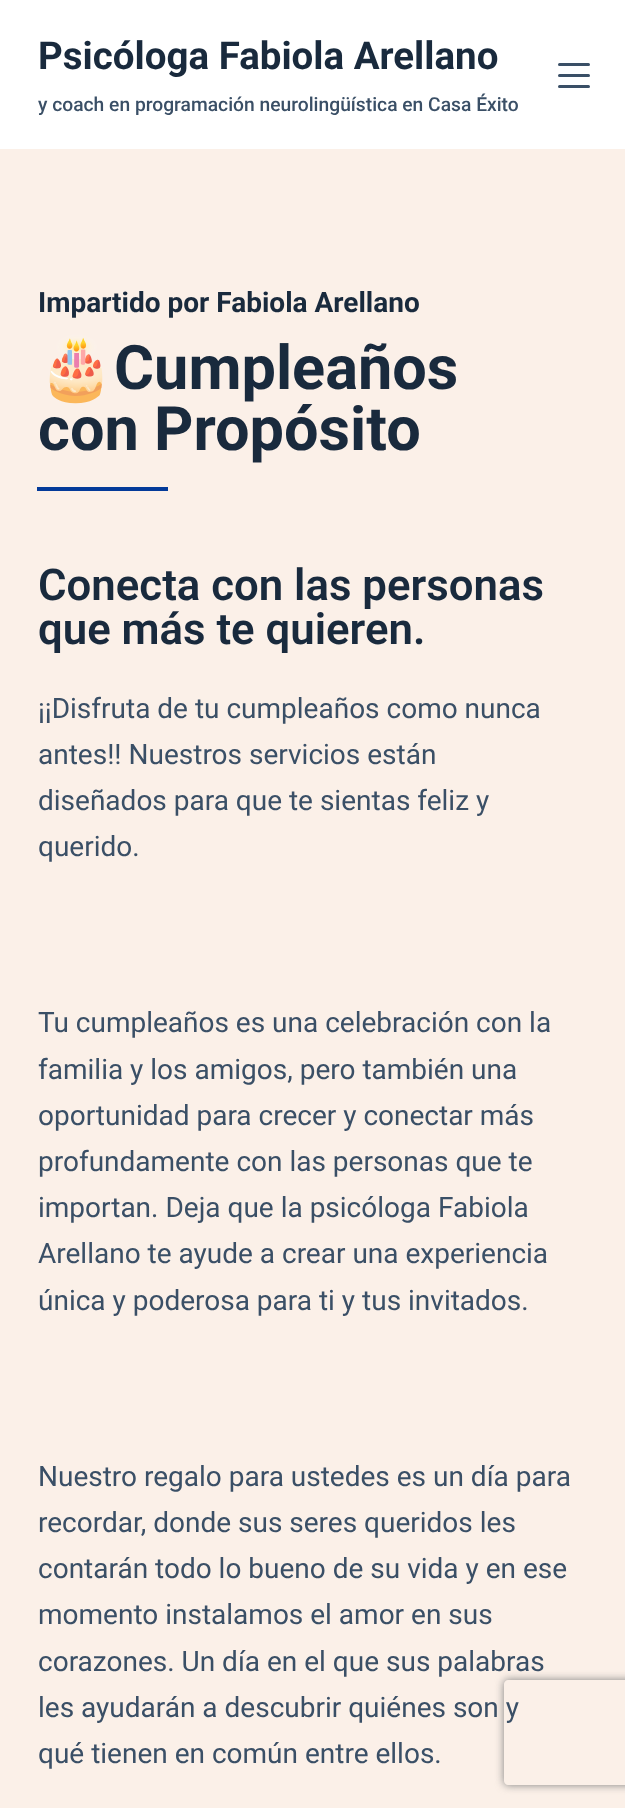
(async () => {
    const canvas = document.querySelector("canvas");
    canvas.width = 625;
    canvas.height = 1808;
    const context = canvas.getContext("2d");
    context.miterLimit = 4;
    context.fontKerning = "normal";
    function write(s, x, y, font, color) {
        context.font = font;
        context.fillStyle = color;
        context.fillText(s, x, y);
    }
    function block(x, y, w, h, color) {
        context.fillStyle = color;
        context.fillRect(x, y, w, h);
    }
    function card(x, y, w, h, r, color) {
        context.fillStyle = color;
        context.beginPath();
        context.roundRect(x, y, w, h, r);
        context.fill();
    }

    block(0, 0, 625, 1808, "rgb(251, 240, 232)");
    block(0, 0, 625, 149, "rgb(255, 255, 255)");
    write("Psicóloga Fabiola Arellano", 38, 69, "bold 38.5px Roboto", "rgb(25, 42, 61)");
    write("y coach en programación neurolingüística en Casa Éxito", 38, 111, "500 19.25px Roboto", "rgb(58, 79, 102)");
    card(558, 63, 32, 3, 1.5, "rgb(58, 79, 102)");
    card(558, 74, 32, 3, 1.5, "rgb(58, 79, 102)");
    card(558, 85, 32, 3, 1.5, "rgb(58, 79, 102)");
    write("Impartido por Fabiola Arellano", 38, 312, "bold 28px Roboto", "rgb(25, 42, 61)");
    write("🎂", 38, 389, "bold 61.25px Noto Color Emoji", "rgb(25, 42, 61)");
    write("Cumpleaños", 114, 389, "bold 61.25px Roboto", "rgb(25, 42, 61)");
    write("con Propósito", 38, 450, "bold 61.25px Roboto", "rgb(25, 42, 61)");
    block(37, 487, 131, 4, "rgb(3, 58, 153)");
    write("Conecta con las personas", 38, 600, "600 43.75px Roboto", "rgb(25, 42, 61)");
    write("que más te quieren.", 38, 644, "600 43.75px Roboto", "rgb(25, 42, 61)");
    write("¡¡Disfruta de tu cumpleaños como nunca", 38, 718, "28px Roboto", "rgb(58, 79, 102)");
    write("antes!! Nuestros servicios están", 38, 764, "28px Roboto", "rgb(58, 79, 102)");
    write("diseñados para que te sientas feliz y", 38, 810, "28px Roboto", "rgb(58, 79, 102)");
    write("querido.", 38, 856, "28px Roboto", "rgb(58, 79, 102)");
    write("Tu cumpleaños es una celebración con la", 38, 1032, "28px Roboto", "rgb(58, 79, 102)");
    write("familia y los amigos, pero también una", 38, 1079, "28px Roboto", "rgb(58, 79, 102)");
    write("oportunidad para crecer y conectar más", 38, 1125, "28px Roboto", "rgb(58, 79, 102)");
    write("profundamente con las personas que te", 38, 1171, "28px Roboto", "rgb(58, 79, 102)");
    write("importan. Deja que la psicóloga Fabiola", 38, 1217, "28px Roboto", "rgb(58, 79, 102)");
    write("Arellano te ayude a crear una experiencia", 38, 1263, "28px Roboto", "rgb(58, 79, 102)");
    write("única y poderosa para ti y tus invitados.", 38, 1310, "28px Roboto", "rgb(58, 79, 102)");
    write("Nuestro regalo para ustedes es un día para", 38, 1486, "28px Roboto", "rgb(58, 79, 102)");
    write("recordar, donde sus seres queridos les", 38, 1532, "28px Roboto", "rgb(58, 79, 102)");
    write("contarán todo lo bueno de su vida y en ese", 38, 1578, "28px Roboto", "rgb(58, 79, 102)");
    write("momento instalamos el amor en sus", 38, 1624, "28px Roboto", "rgb(58, 79, 102)");
    write("corazones. Un día en el que sus palabras", 38, 1671, "28px Roboto", "rgb(58, 79, 102)");
    write("les ayudarán a descubrir quiénes son y", 38, 1717, "28px Roboto", "rgb(58, 79, 102)");
    write("qué tienen en común entre ellos.", 38, 1763, "28px Roboto", "rgb(58, 79, 102)");
    context.save();
    context.beginPath();
    context.moveTo(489, 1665);
    context.lineTo(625, 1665);
    context.lineTo(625, 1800);
    context.lineTo(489, 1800);
    context.closePath();
    context.moveTo(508, 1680);
    context.lineTo(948, 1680);
    context.bezierCurveTo(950, 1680, 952, 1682, 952, 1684);
    context.lineTo(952, 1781);
    context.bezierCurveTo(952, 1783, 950, 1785, 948, 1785);
    context.lineTo(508, 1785);
    context.bezierCurveTo(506, 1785, 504, 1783, 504, 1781);
    context.lineTo(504, 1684);
    context.bezierCurveTo(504, 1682, 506, 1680, 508, 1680);
    context.closePath();
    context.clip("evenodd");
    context.fillStyle = "rgb(128, 128, 128)";
    context.filter = "blur(4.5px)";
    context.beginPath();
    context.roundRect(504, 1680, 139, 105, 4);
    context.fill();
    context.filter = "none";
    context.restore();
})();
